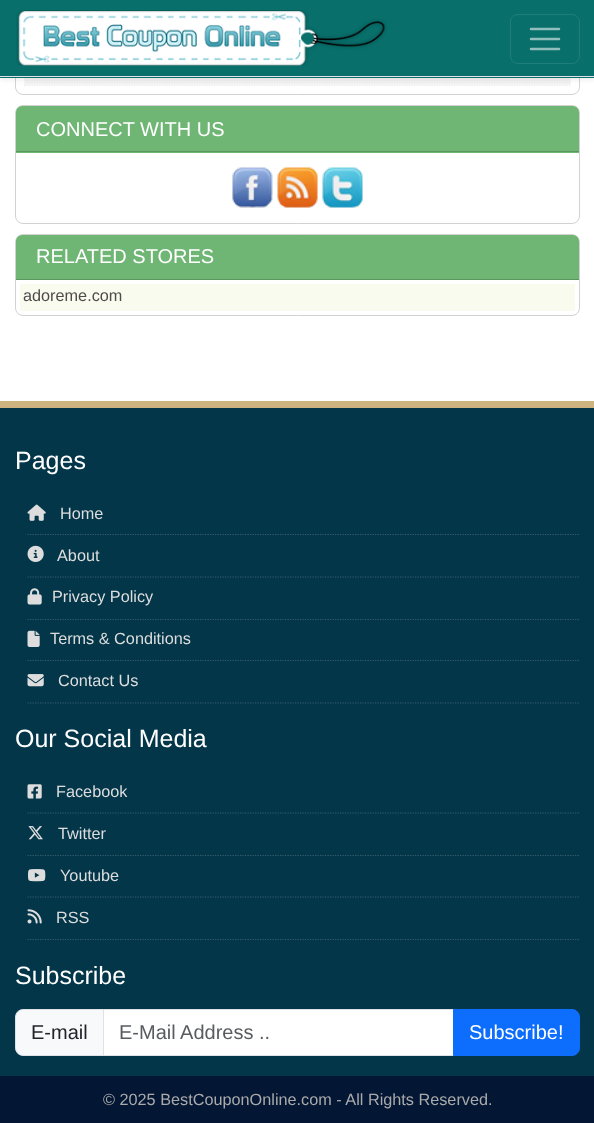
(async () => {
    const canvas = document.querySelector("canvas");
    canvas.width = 594;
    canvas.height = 1123;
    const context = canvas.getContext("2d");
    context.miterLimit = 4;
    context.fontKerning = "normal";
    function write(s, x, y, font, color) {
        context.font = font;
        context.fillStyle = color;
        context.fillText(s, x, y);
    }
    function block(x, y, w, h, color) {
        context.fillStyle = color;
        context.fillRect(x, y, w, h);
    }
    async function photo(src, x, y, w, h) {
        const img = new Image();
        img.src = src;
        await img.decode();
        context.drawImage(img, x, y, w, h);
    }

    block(0, 0, 594, 1123, "rgb(255, 255, 255)");
    context.beginPath();
    context.roundRect(15.5, -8.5, 564, 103, 7.5);
    context.strokeStyle = "rgb(210, 210, 210)";
    context.stroke();
    context.beginPath();
    context.moveTo(24, 85.5);
    context.lineTo(571, 85.5);
    context.strokeStyle = "rgb(233, 233, 233)";
    context.lineWidth = 1.2;
    context.setLineDash([1.25, 1.25]);
    context.stroke();
    block(25, 78, 545, 6, "rgb(242, 242, 242)");
    context.strokeStyle = "rgb(246, 246, 246)";
    context.lineWidth = 1;
    context.setLineDash([]);
    context.strokeRect(24.5, -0.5, 546, 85);
    context.fillStyle = "rgba(0, 0, 0, 0.07)";
    context.filter = "blur(2.5px)";
    context.beginPath();
    context.rect(0, 3, 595, 77);
    context.fill();
    context.filter = "none";
    block(0, 0, 594, 78, "rgb(8, 111, 107)");
    block(0, 76, 594, 1, "rgb(222, 226, 230)");
    await photo("media/1.png", 16, 10, 371, 56);
    context.beginPath();
    context.roundRect(510.5, 14.5, 69, 49, 7.5);
    context.strokeStyle = "rgb(33, 125, 122)";
    context.stroke();
    context.beginPath();
    context.moveTo(531, 29);
    context.lineTo(559, 29);
    context.moveTo(531, 39);
    context.lineTo(559, 39);
    context.moveTo(531, 49);
    context.lineTo(559, 49);
    context.strokeStyle = "rgb(144, 190, 188)";
    context.lineWidth = 2.5;
    context.lineCap = "round";
    context.stroke();
    context.beginPath();
    context.roundRect(15.5, 105.5, 564, 118, 7.5);
    context.strokeStyle = "rgb(210, 210, 210)";
    context.lineWidth = 1;
    context.stroke();
    context.fillStyle = "rgb(111, 182, 117)";
    context.beginPath();
    context.roundRect(16, 106, 563, 47, [6, 6, 0, 0]);
    context.fill();
    block(16, 151, 563, 1, "rgb(91, 150, 96)");
    write("CONNECT WITH US", 36, 136, "20px Liberation Sans", "rgb(255, 255, 255)");
    await photo("media/2.png", 232, 167, 41, 41);
    await photo("media/3.png", 277, 167, 41, 41);
    await photo("media/4.png", 322, 167, 41, 41);
    context.beginPath();
    context.roundRect(15.5, 234.5, 564, 81, 7.5);
    context.stroke();
    context.fillStyle = "rgb(111, 182, 117)";
    context.beginPath();
    context.roundRect(16, 235, 563, 45, [6, 6, 0, 0]);
    context.fill();
    block(16, 279, 563, 1, "rgb(91, 150, 96)");
    write("RELATED STORES", 36, 263, "20px Liberation Sans", "rgb(255, 255, 255)");
    block(20, 284, 555, 27, "rgb(249, 251, 238)");
    write("adoreme.com", 23, 301, "16.25px Liberation Sans", "rgb(80, 75, 75)");
    block(0, 408, 594, 668, "rgb(3, 54, 73)");
    block(0, 401, 594, 7, "rgb(205, 179, 128)");
    write("Pages", 15, 469, "25px Liberation Sans", "rgb(255, 255, 255)");
    context.beginPath();
    context.moveTo(27.5, 534.5);
    context.lineTo(580, 534.5);
    context.strokeStyle = "rgb(53, 94, 109)";
    context.lineWidth = 1.2;
    context.lineCap = "butt";
    context.setLineDash([1.25, 1.25]);
    context.stroke();
    await photo("media/5.png", 27, 504, 19, 17);
    write("Home", 60, 519, "16.25px Liberation Sans", "rgb(221, 221, 221)");
    context.beginPath();
    context.moveTo(27.5, 577);
    context.lineTo(580, 577);
    context.stroke();
    await photo("media/6.png", 27, 545, 17, 17);
    write("About", 57, 561, "16.25px Liberation Sans", "rgb(221, 221, 221)");
    context.beginPath();
    context.moveTo(27.5, 619.5);
    context.lineTo(580, 619.5);
    context.stroke();
    await photo("media/7.png", 27, 588, 15, 17);
    write("Privacy Policy", 52, 602, "16.25px Liberation Sans", "rgb(221, 221, 221)");
    context.beginPath();
    context.moveTo(27.5, 660.5);
    context.lineTo(580, 660.5);
    context.stroke();
    await photo("media/8.png", 27, 630, 13, 17);
    write("Terms & Conditions", 50, 644, "16.25px Liberation Sans", "rgb(221, 221, 221)");
    context.beginPath();
    context.moveTo(27.5, 703);
    context.lineTo(580, 703);
    context.stroke();
    await photo("media/9.png", 27, 674, 17, 13);
    write("Contact Us", 58, 686, "16.25px Liberation Sans", "rgb(221, 221, 221)");
    write("Our Social Media", 15, 747, "25px Liberation Sans", "rgb(255, 255, 255)");
    context.beginPath();
    context.moveTo(27.5, 813);
    context.lineTo(580, 813);
    context.stroke();
    await photo("media/10.png", 27, 784, 15, 15);
    write("Facebook", 56, 797, "16.25px Liberation Sans", "rgb(221, 221, 221)");
    context.beginPath();
    context.moveTo(27.5, 855.5);
    context.lineTo(580, 855.5);
    context.stroke();
    await photo("media/11.png", 28, 826, 15, 14);
    write("Twitter", 58, 839, "16.25px Liberation Sans", "rgb(221, 221, 221)");
    context.beginPath();
    context.moveTo(27.5, 897);
    context.lineTo(580, 897);
    context.stroke();
    await photo("media/12.png", 27, 869, 19, 13);
    write("Youtube", 60, 881, "16.25px Liberation Sans", "rgb(221, 221, 221)");
    context.beginPath();
    context.moveTo(27.5, 939.5);
    context.lineTo(580, 939.5);
    context.stroke();
    await photo("media/13.png", 27, 909, 15, 15);
    write("RSS", 56, 923, "16.25px Liberation Sans", "rgb(221, 221, 221)");
    write("Subscribe", 15, 984, "25px Liberation Sans", "rgb(255, 255, 255)");
    context.fillStyle = "rgb(248, 249, 250)";
    context.beginPath();
    context.roundRect(15.5, 1009.5, 88, 46, [7.5, 0, 0, 7.5]);
    context.fill();
    context.strokeStyle = "rgb(222, 226, 230)";
    context.lineWidth = 1;
    context.setLineDash([]);
    context.stroke();
    write("E-mail", 31, 1039, "20px Liberation Sans", "rgb(33, 37, 41)");
    context.fillStyle = "rgb(255, 255, 255)";
    context.beginPath();
    context.rect(103.5, 1009.5, 350, 46);
    context.fill();
    context.stroke();
    write("E-Mail Address ..", 119, 1039, "20px Liberation Sans", "rgb(89, 92, 95)");
    context.fillStyle = "rgb(13, 110, 253)";
    context.beginPath();
    context.roundRect(453.5, 1009.5, 126, 46, [0, 7.5, 7.5, 0]);
    context.fill();
    context.strokeStyle = "rgb(13, 110, 253)";
    context.stroke();
    write("Subscribe!", 469, 1039, "20px Liberation Sans", "rgb(255, 255, 255)");
    block(0, 1076, 594, 47, "rgb(3, 22, 52)");
    write("© 2025 BestCouponOnline.com - All Rights Reserved.", 103, 1105, "16.25px Liberation Sans", "rgb(170, 170, 170)");
})();
